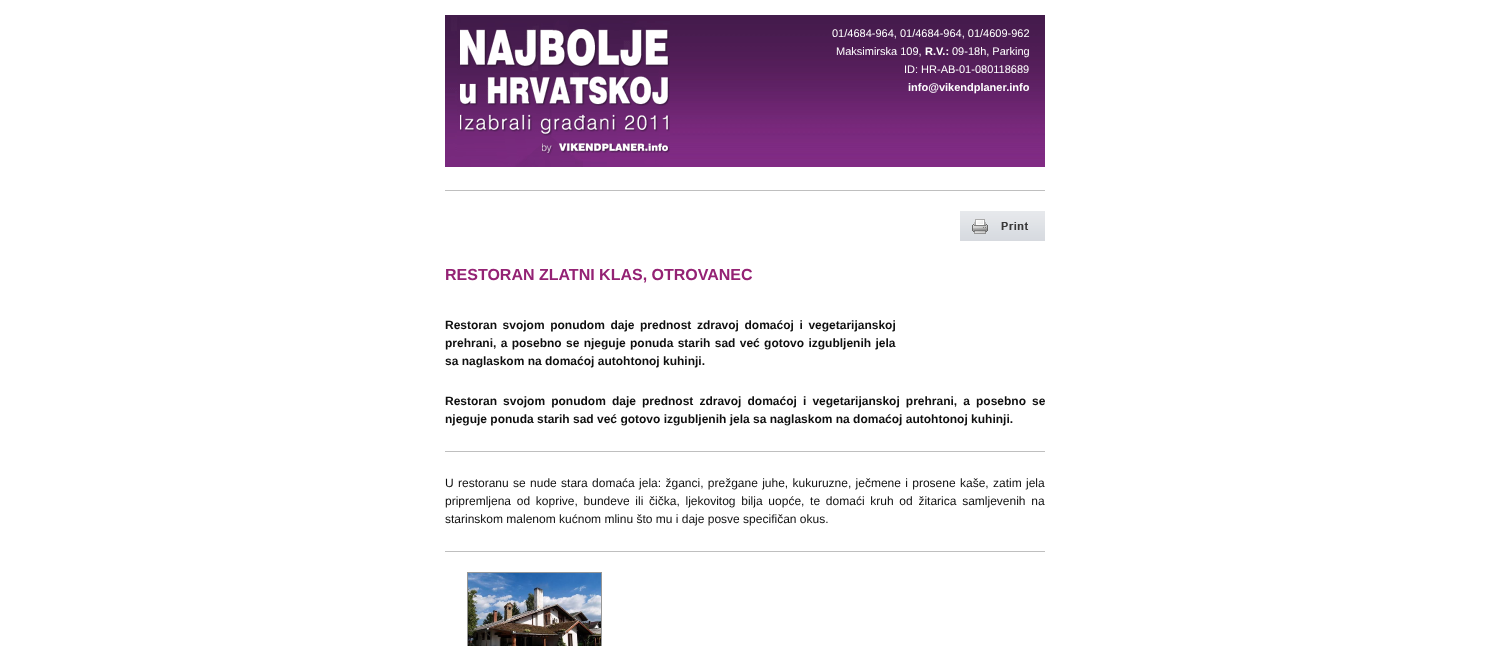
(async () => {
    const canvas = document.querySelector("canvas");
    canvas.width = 1489;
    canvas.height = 646;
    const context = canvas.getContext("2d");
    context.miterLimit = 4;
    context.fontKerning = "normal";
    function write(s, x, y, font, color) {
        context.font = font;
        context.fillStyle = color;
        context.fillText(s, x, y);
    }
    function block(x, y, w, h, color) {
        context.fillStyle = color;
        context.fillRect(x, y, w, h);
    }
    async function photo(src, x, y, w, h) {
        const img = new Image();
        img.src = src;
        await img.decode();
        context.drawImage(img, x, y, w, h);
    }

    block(0, 0, 1489, 646, "rgb(255, 255, 255)");
    await photo("media/1.png", 445, 15, 600, 152);
    block(445, 190, 600, 1, "rgb(191, 191, 191)");
    await photo("media/2.png", 445, 17, 225, 150);
    write("01/4684-964, 01/4684-964, 01/4609-962", 832, 37, "11px Liberation Sans", "rgb(255, 255, 255)");
    write("Maksimirska 109,", 836, 55, "11px Liberation Sans", "rgb(255, 255, 255)");
    write("R.V.:", 925, 55, "bold 11px Liberation Sans", "rgb(255, 255, 255)");
    write("09-18h, Parking", 952, 55, "11px Liberation Sans", "rgb(255, 255, 255)");
    write("ID: HR-AB-01-080118689", 904, 73, "11px Liberation Sans", "rgb(255, 255, 255)");
    write("info@vikendplaner.info", 908, 91, "bold 11px Liberation Sans", "rgb(255, 255, 255)");
    await photo("media/3.png", 960, 211, 85, 30);
    write("RESTORAN ZLATNI KLAS, OTROVANEC", 445, 280, "bold 16px Liberation Sans", "rgb(148, 34, 116)");
    context.wordSpacing = "2.25px";
    write("Restoran svojom ponudom daje prednost zdravoj domaćoj i vegetarijanskoj", 445, 329, "bold 12px Liberation Sans", "rgb(15, 15, 15)");
    context.wordSpacing = "1px";
    write("prehrani, a posebno se njeguje ponuda starih sad već gotovo izgubljenih jela", 445, 347, "bold 12px Liberation Sans", "rgb(15, 15, 15)");
    context.wordSpacing = "0px";
    write("sa naglaskom na domaćoj autohtonoj kuhinji.", 445, 365, "bold 12px Liberation Sans", "rgb(15, 15, 15)");
    context.wordSpacing = "2.75px";
    write("Restoran svojom ponudom daje prednost zdravoj domaćoj i vegetarijanskoj prehrani, a posebno se", 445, 405, "bold 12px Liberation Sans", "rgb(15, 15, 15)");
    context.wordSpacing = "0px";
    write("njeguje ponuda starih sad već gotovo izgubljenih jela sa naglaskom na domaćoj autohtonoj kuhinji.", 445, 423, "bold 12px Liberation Sans", "rgb(15, 15, 15)");
    block(445, 451, 600, 1, "rgb(191, 191, 191)");
    context.wordSpacing = "1px";
    write("U restoranu se nude stara domaća jela: žganci, prežgane juhe, kukuruzne, ječmene i prosene kaše, zatim jela", 445, 487, "12px Liberation Sans", "rgb(15, 15, 15)");
    context.wordSpacing = "2.4px";
    write("pripremljena od koprive, bundeve ili čička, ljekovitog bilja uopće, te domaći kruh od žitarica samljevenih na", 445, 505, "12px Liberation Sans", "rgb(15, 15, 15)");
    context.wordSpacing = "0px";
    write("starinskom malenom kućnom mlinu što mu i daje posve specifičan okus.", 445, 523, "12px Liberation Sans", "rgb(15, 15, 15)");
    block(445, 551, 600, 1, "rgb(191, 191, 191)");
    context.strokeStyle = "rgb(151, 151, 151)";
    context.strokeRect(467.5, 572.5, 134, 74);
    await photo("media/4.png", 468, 573, 133, 73);
})();
